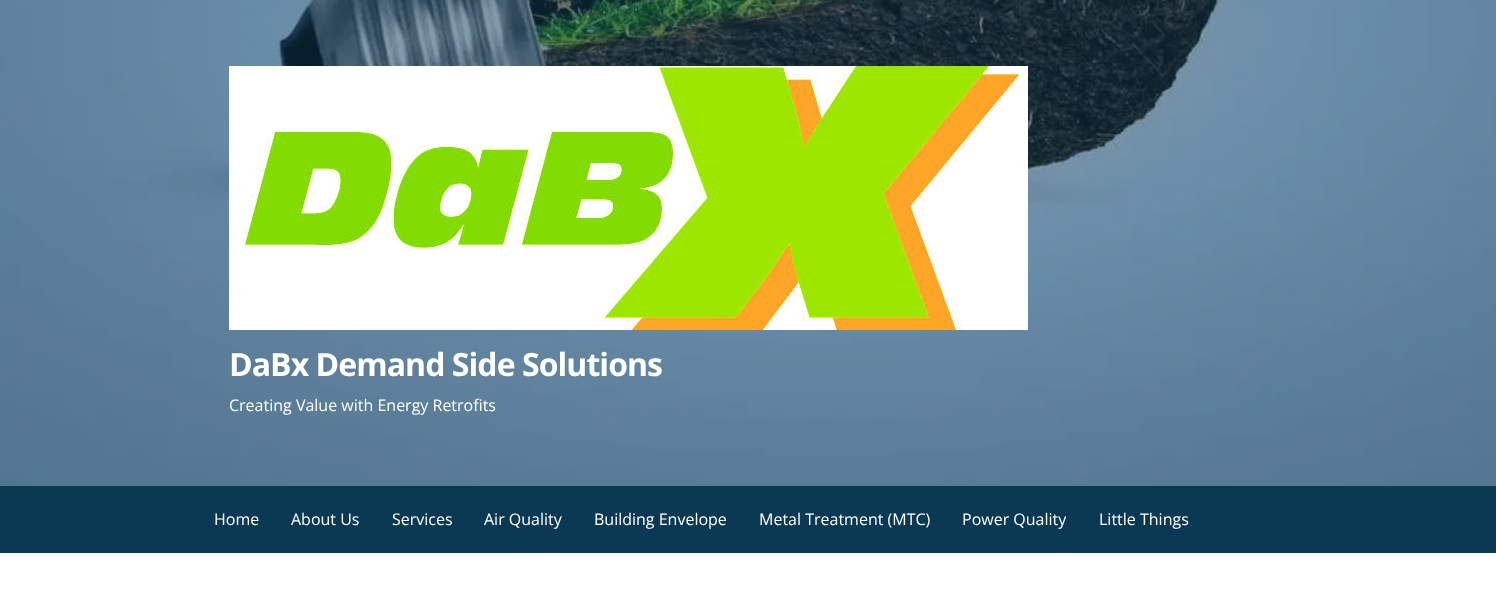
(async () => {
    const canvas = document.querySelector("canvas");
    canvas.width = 1496;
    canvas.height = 607;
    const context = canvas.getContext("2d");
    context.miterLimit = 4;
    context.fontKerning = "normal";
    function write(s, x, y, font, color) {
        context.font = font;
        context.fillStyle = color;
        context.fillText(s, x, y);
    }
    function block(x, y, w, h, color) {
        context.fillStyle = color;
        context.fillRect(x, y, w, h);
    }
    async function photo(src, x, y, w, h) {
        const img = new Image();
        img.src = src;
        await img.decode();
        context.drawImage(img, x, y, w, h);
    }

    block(0, 0, 1496, 607, "rgb(11, 57, 84)");
    await photo("media/1.png", 0, 0, 1496, 486);
    await photo("media/2.png", 229, 66, 799, 264);
    context.letterSpacing = "-0.95px";
    write("DaBx Demand Side Solutions", 229, 376, "bold 32px Open Sans", "rgb(255, 255, 255)");
    context.letterSpacing = "0px";
    write("Creating Value with Energy Retrofits", 229, 411, "16px Open Sans", "rgb(255, 255, 255)");
    write("Home", 214, 525, "16px Open Sans", "rgb(255, 255, 255)");
    write("About Us", 291, 525, "16px Open Sans", "rgb(255, 255, 255)");
    write("Services", 392, 525, "16px Open Sans", "rgb(255, 255, 255)");
    write("Air Quality", 484, 525, "16px Open Sans", "rgb(255, 255, 255)");
    write("Building Envelope", 594, 525, "16px Open Sans", "rgb(255, 255, 255)");
    write("Metal Treatment (MTC)", 759, 525, "16px Open Sans", "rgb(255, 255, 255)");
    write("Power Quality", 962, 525, "16px Open Sans", "rgb(255, 255, 255)");
    write("Little Things", 1099, 525, "16px Open Sans", "rgb(255, 255, 255)");
    block(0, 553, 1496, 54, "rgb(255, 255, 255)");
})();
